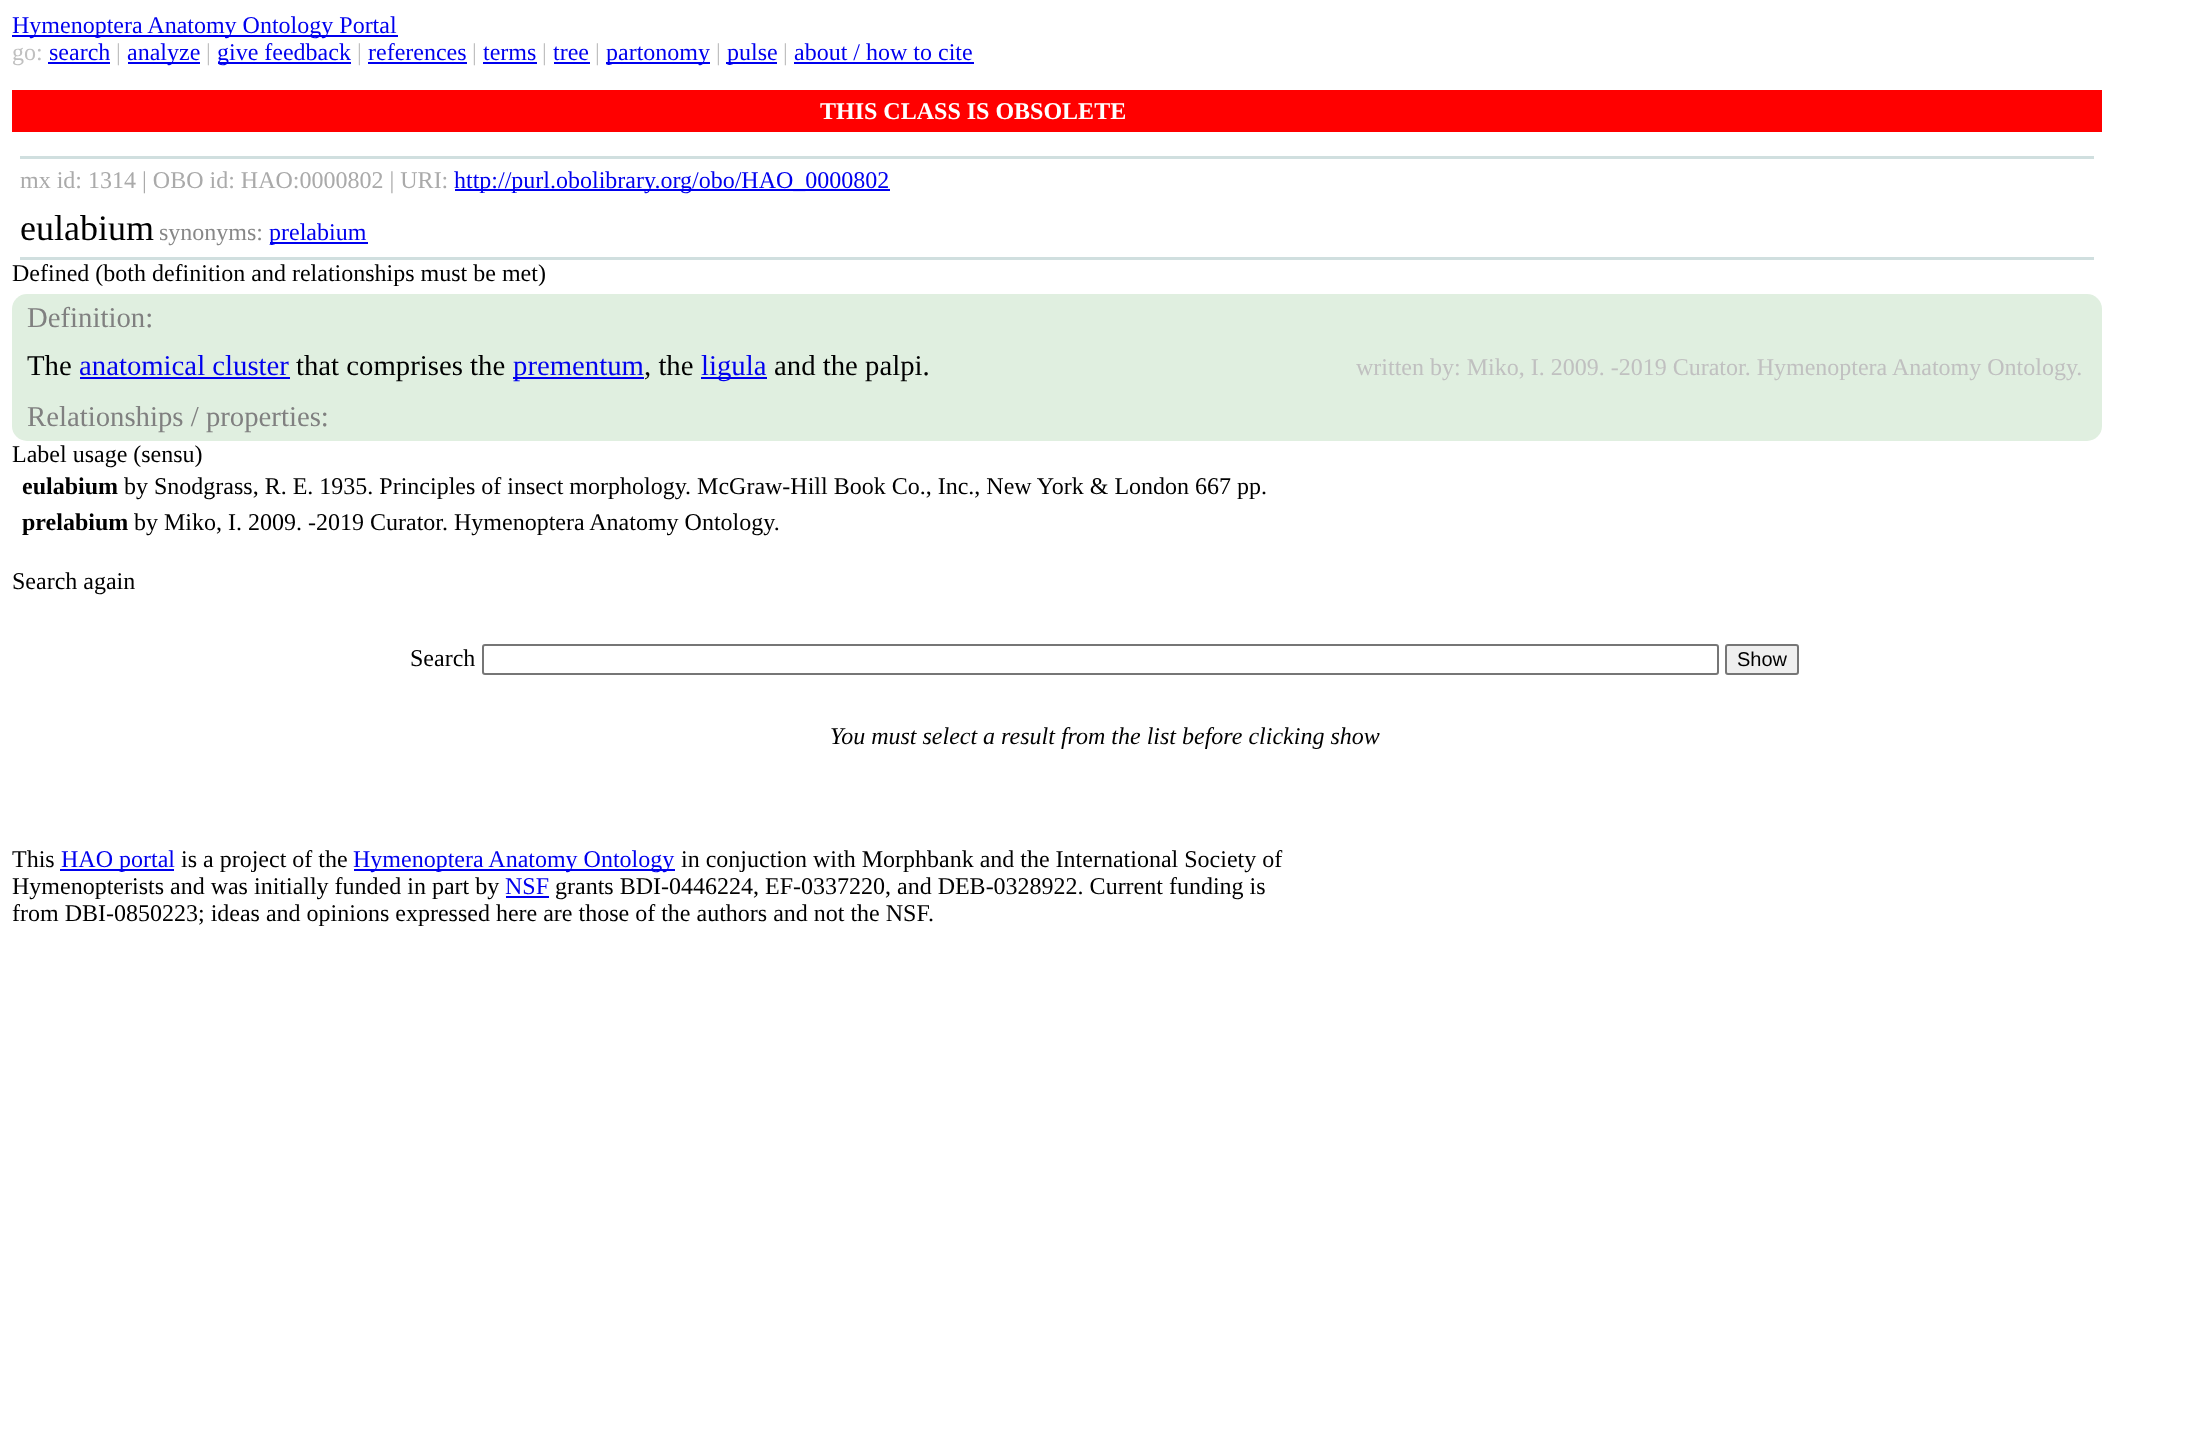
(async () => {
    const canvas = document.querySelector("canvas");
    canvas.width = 2200;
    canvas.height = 1452;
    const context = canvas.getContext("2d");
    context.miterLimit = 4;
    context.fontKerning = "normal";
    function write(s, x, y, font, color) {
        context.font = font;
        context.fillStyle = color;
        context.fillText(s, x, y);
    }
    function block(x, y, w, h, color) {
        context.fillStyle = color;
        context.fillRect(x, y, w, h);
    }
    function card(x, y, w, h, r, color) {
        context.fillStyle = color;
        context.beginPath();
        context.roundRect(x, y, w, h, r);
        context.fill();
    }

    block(0, 0, 2200, 1452, "rgb(255, 255, 255)");
    block(12, 35, 386, 2, "rgb(0, 0, 238)");
    write("Hymenoptera Anatomy Ontology Portal", 12, 33, "24px Liberation Serif", "rgb(0, 0, 238)");
    write("go:", 12, 60, "24px Liberation Serif", "rgb(192, 192, 192)");
    write("search", 49, 60, "24px Liberation Serif", "rgb(0, 0, 238)");
    block(48, 62, 62, 2, "rgb(0, 0, 238)");
    write("|", 116, 60, "24px Liberation Serif", "rgb(192, 192, 192)");
    block(128, 62, 72, 2, "rgb(0, 0, 238)");
    write("analyze", 127, 60, "24px Liberation Serif", "rgb(0, 0, 238)");
    write("|", 206, 60, "24px Liberation Serif", "rgb(192, 192, 192)");
    block(218, 62, 133, 2, "rgb(0, 0, 238)");
    write("give feedback", 217, 60, "24px Liberation Serif", "rgb(0, 0, 238)");
    write("|", 357, 60, "24px Liberation Serif", "rgb(192, 192, 192)");
    write("references", 368, 60, "24px Liberation Serif", "rgb(0, 0, 238)");
    block(368, 62, 99, 2, "rgb(0, 0, 238)");
    write("|", 472, 60, "24px Liberation Serif", "rgb(192, 192, 192)");
    write("terms", 483, 60, "24px Liberation Serif", "rgb(0, 0, 238)");
    block(483, 62, 54, 2, "rgb(0, 0, 238)");
    write("|", 542, 60, "24px Liberation Serif", "rgb(192, 192, 192)");
    write("tree", 553, 60, "24px Liberation Serif", "rgb(0, 0, 238)");
    block(554, 62, 36, 2, "rgb(0, 0, 238)");
    write("|", 595, 60, "24px Liberation Serif", "rgb(192, 192, 192)");
    block(606, 62, 104, 2, "rgb(0, 0, 238)");
    write("partonomy", 606, 60, "24px Liberation Serif", "rgb(0, 0, 238)");
    write("|", 716, 60, "24px Liberation Serif", "rgb(192, 192, 192)");
    block(726, 62, 51, 2, "rgb(0, 0, 238)");
    write("pulse", 727, 60, "24px Liberation Serif", "rgb(0, 0, 238)");
    write("|", 783, 60, "24px Liberation Serif", "rgb(192, 192, 192)");
    write("about / how to cite", 794, 60, "24px Liberation Serif", "rgb(0, 0, 238)");
    block(794, 62, 180, 2, "rgb(0, 0, 238)");
    block(12, 90, 2090, 42, "rgb(255, 0, 0)");
    write("THIS CLASS IS OBSOLETE", 820, 119, "bold 24px Liberation Serif", "rgb(255, 255, 255)");
    block(20, 156, 2074, 3, "rgb(208, 223, 223)");
    write("mx id: 1314 | OBO id: HAO:0000802 | URI:", 20, 188, "24px Liberation Serif", "rgb(170, 170, 170)");
    block(455, 189, 435, 2, "rgb(0, 0, 238)");
    write("http://purl.obolibrary.org/obo/HAO_0000802", 454, 188, "24px Liberation Serif", "rgb(0, 0, 238)");
    block(20, 257, 2074, 3, "rgb(208, 223, 223)");
    write("eulabium", 20, 240, "36px Liberation Serif", "rgb(0, 0, 0)");
    write("synonyms:", 159, 240, "24px Liberation Serif", "rgb(136, 136, 136)");
    block(270, 242, 98, 2, "rgb(0, 0, 238)");
    write("prelabium", 269, 240, "24px Liberation Serif", "rgb(0, 0, 238)");
    write("Defined (both definition and relationships must be met)", 12, 281, "24px Liberation Serif", "rgb(0, 0, 0)");
    card(12, 294, 2090, 147, 15, "rgb(224, 239, 224)");
    write("Definition:", 27, 327, "28.75px Liberation Serif", "rgb(128, 128, 128)");
    write("The", 27, 375, "28.75px Liberation Serif", "rgb(0, 0, 0)");
    write("anatomical cluster", 79, 375, "28.75px Liberation Serif", "rgb(0, 0, 238)");
    block(80, 377, 210, 2, "rgb(0, 0, 238)");
    write("that comprises the", 296, 375, "28.75px Liberation Serif", "rgb(0, 0, 0)");
    block(513, 377, 131, 2, "rgb(0, 0, 238)");
    write("prementum", 513, 375, "28.75px Liberation Serif", "rgb(0, 0, 238)");
    write(", the", 644, 375, "28.75px Liberation Serif", "rgb(0, 0, 0)");
    block(701, 377, 66, 2, "rgb(0, 0, 238)");
    write("ligula", 701, 375, "28.75px Liberation Serif", "rgb(0, 0, 238)");
    write("and the palpi.", 774, 375, "28.75px Liberation Serif", "rgb(0, 0, 0)");
    write("written by: Miko, I. 2009. -2019 Curator. Hymenoptera Anatomy Ontology.", 1356, 375, "24px Liberation Serif", "rgb(192, 192, 192)");
    write("Relationships / properties:", 27, 426, "28.75px Liberation Serif", "rgb(128, 128, 128)");
    write("Label usage (sensu)", 12, 462, "24px Liberation Serif", "rgb(0, 0, 0)");
    write("eulabium", 22, 494, "bold 24px Liberation Serif", "rgb(0, 0, 0)");
    write("by Snodgrass, R. E. 1935. Principles of insect morphology. McGraw-Hill Book Co., Inc., New York & London 667 pp.", 124, 494, "24px Liberation Serif", "rgb(0, 0, 0)");
    write("prelabium", 22, 530, "bold 24px Liberation Serif", "rgb(0, 0, 0)");
    write("by Miko, I. 2009. -2019 Curator. Hymenoptera Anatomy Ontology.", 134, 530, "24px Liberation Serif", "rgb(0, 0, 0)");
    write("Search again", 12, 589, "24px Liberation Serif", "rgb(0, 0, 0)");
    write("Search", 410, 666, "24px Liberation Serif", "rgb(0, 0, 0)");
    context.beginPath();
    context.roundRect(483, 645, 1235, 29, 2);
    context.strokeStyle = "rgb(118, 118, 118)";
    context.lineWidth = 2;
    context.stroke();
    context.fillStyle = "rgb(239, 239, 239)";
    context.beginPath();
    context.roundRect(1726, 645, 72, 29, 2);
    context.fill();
    context.stroke();
    write("Show", 1737, 666, "20px Liberation Sans", "rgb(0, 0, 0)");
    write("You must select a result from the list before clicking show", 830, 744, "italic 24px Liberation Serif", "rgb(0, 0, 0)");
    write("This", 12, 867, "24px Liberation Serif", "rgb(0, 0, 0)");
    block(60, 869, 114, 2, "rgb(0, 0, 238)");
    write("HAO portal", 61, 867, "24px Liberation Serif", "rgb(0, 0, 238)");
    write("is a project of the", 181, 867, "24px Liberation Serif", "rgb(0, 0, 0)");
    block(354, 869, 321, 2, "rgb(0, 0, 238)");
    write("Hymenoptera Anatomy Ontology", 353, 867, "24px Liberation Serif", "rgb(0, 0, 238)");
    write("in conjuction with Morphbank and the International Society of", 681, 867, "24px Liberation Serif", "rgb(0, 0, 0)");
    write("Hymenopterists and was initially funded in part by", 12, 894, "24px Liberation Serif", "rgb(0, 0, 0)");
    write("NSF", 505, 894, "24px Liberation Serif", "rgb(0, 0, 238)");
    block(506, 896, 43, 2, "rgb(0, 0, 238)");
    write("grants BDI-0446224, EF-0337220, and DEB-0328922. Current funding is", 555, 894, "24px Liberation Serif", "rgb(0, 0, 0)");
    write("from DBI-0850223; ideas and opinions expressed here are those of the authors and not the NSF.", 12, 921, "24px Liberation Serif", "rgb(0, 0, 0)");
})();
